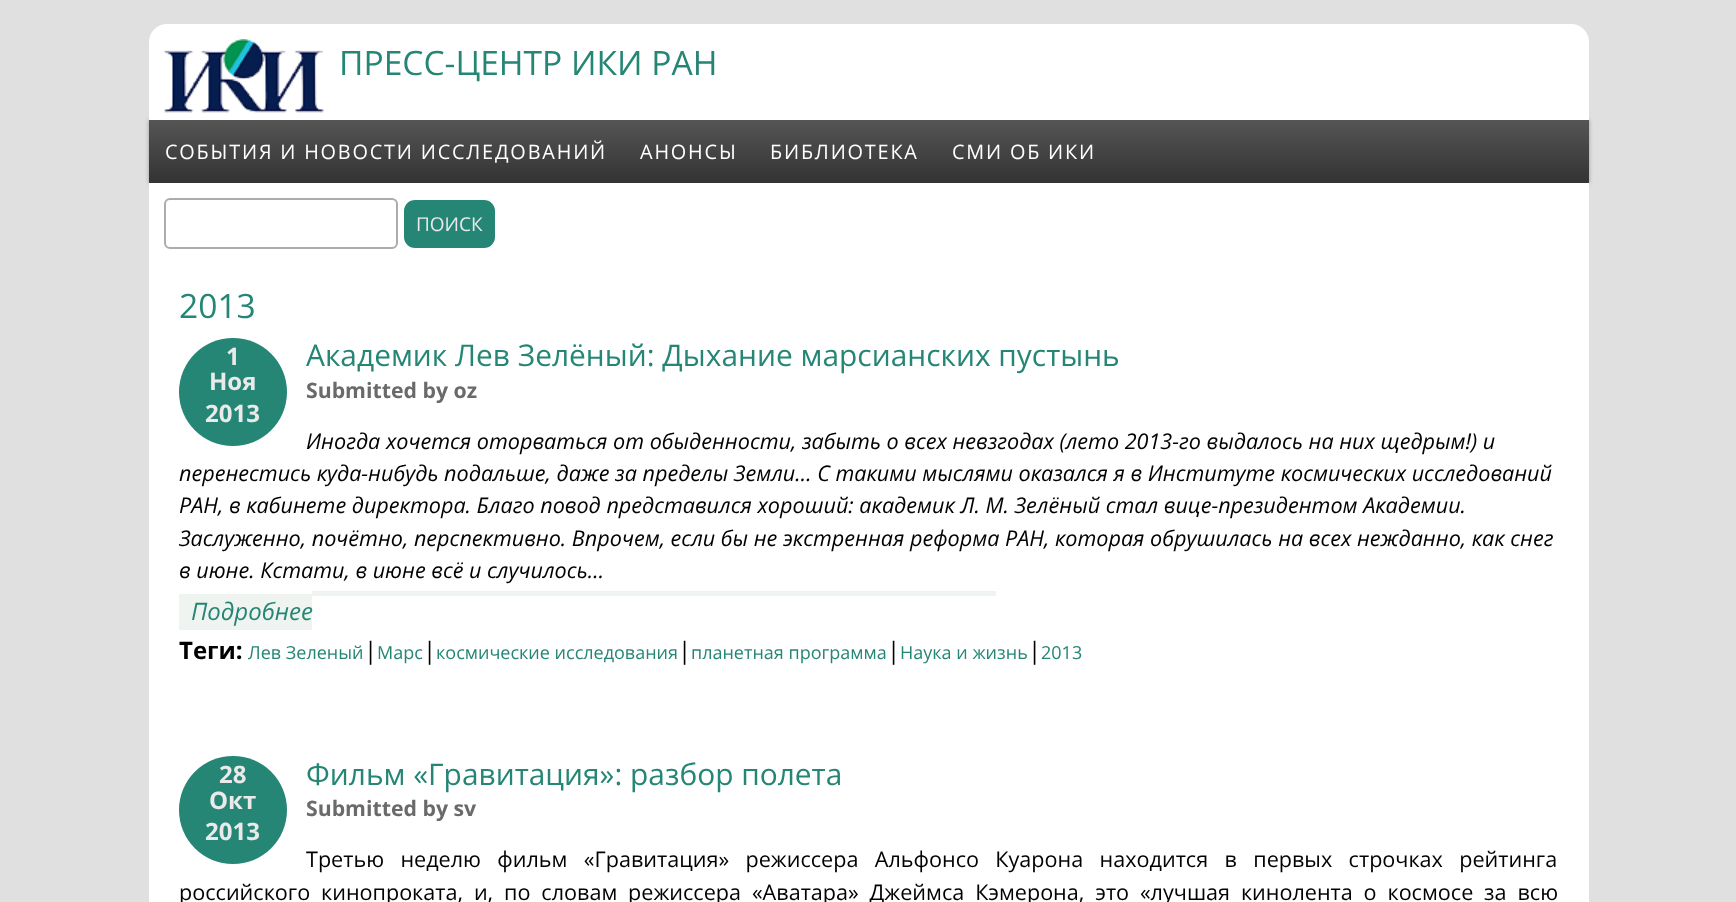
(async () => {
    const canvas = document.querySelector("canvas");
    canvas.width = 1736;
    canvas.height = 902;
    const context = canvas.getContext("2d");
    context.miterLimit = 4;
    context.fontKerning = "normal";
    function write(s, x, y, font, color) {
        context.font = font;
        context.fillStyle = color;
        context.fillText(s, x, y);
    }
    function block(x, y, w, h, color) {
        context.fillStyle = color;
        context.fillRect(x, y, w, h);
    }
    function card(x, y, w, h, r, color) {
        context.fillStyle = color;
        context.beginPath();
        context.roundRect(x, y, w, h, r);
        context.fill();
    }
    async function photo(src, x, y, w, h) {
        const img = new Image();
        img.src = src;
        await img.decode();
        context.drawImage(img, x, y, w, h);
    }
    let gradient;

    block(0, 0, 1736, 902, "rgb(224, 224, 224)");
    context.fillStyle = "rgb(153, 153, 153)";
    context.filter = "blur(2px)";
    context.beginPath();
    context.rect(149, 120, 1440, 63);
    context.fill();
    context.filter = "none";
    context.fillStyle = "rgb(255, 255, 255)";
    context.beginPath();
    context.roundRect(149, 24, 1440, 96, [18, 18, 0, 0]);
    context.fill();
    await photo("media/1.png", 163, 39, 161, 74);
    write("ПРЕСС-ЦЕНТР ИКИ РАН", 339, 75, "33.6px Open Sans", "rgb(37, 134, 117)");
    gradient = context.createLinearGradient(869, 120, 869, 246);
    gradient.addColorStop(0, "rgb(85, 85, 85)");
    gradient.addColorStop(0.5, "rgb(51, 51, 51)");
    gradient.addColorStop(0.5, "rgb(85, 85, 85)");
    gradient.addColorStop(1, "rgb(51, 51, 51)");
    context.fillStyle = gradient;
    context.fillRect(149, 120, 1440, 63);
    context.letterSpacing = "1.8px";
    write("СОБЫТИЯ И НОВОСТИ ИССЛЕДОВАНИЙ", 165, 159, "19.9px Open Sans", "rgb(255, 255, 255)");
    write("АНОНСЫ", 640, 159, "19.9px Open Sans", "rgb(255, 255, 255)");
    write("БИБЛИОТЕКА", 770, 159, "19.9px Open Sans", "rgb(255, 255, 255)");
    write("СМИ ОБ ИКИ", 952, 159, "19.9px Open Sans", "rgb(255, 255, 255)");
    block(149, 183, 1440, 719, "rgb(255, 255, 255)");
    context.beginPath();
    context.roundRect(165, 199, 232, 49, 5);
    context.strokeStyle = "rgb(172, 172, 172)";
    context.lineWidth = 2;
    context.stroke();
    card(404, 200, 91, 48, 11, "rgb(37, 134, 117)");
    context.letterSpacing = "0px";
    write("ПОИСК", 416, 231, "19px Open Sans", "rgb(234, 234, 234)");
    write("2013", 179, 318, "33.6px Open Sans", "rgb(37, 134, 117)");
    context.beginPath();
    context.arc(233, 392, 54, 0, Math.PI * 2);
    context.fill();
    write("1", 226, 365, "bold 24px Open Sans", "rgb(234, 234, 234)");
    write("Ноя", 209, 390, "bold 24px Open Sans", "rgb(234, 234, 234)");
    write("2013", 205, 422, "bold 24px Open Sans", "rgb(234, 234, 234)");
    write("Академик Лев Зелёный: Дыхание марсианских пустынь", 306, 366, "29.9px Open Sans", "rgb(37, 134, 117)");
    write("Submitted by oz", 306, 398, "bold 21.25px Open Sans", "rgb(106, 106, 106)");
    write("Иногда хочется оторваться от обыденности, забыть о всех невзгодах (лето 2013-го выдалось на них щедрым!) и", 306, 449, "italic 21.6px Open Sans", "rgb(0, 0, 0)");
    write("перенестись куда-нибудь подальше, даже за пределы Земли… С такими мыслями оказался я в Институте космических исследований", 179, 481, "italic 21.6px Open Sans", "rgb(0, 0, 0)");
    write("РАН, в кабинете директора. Благо повод представился хороший: академик Л. М. Зелёный стал вице-президентом Академии.", 179, 513, "italic 21.6px Open Sans", "rgb(0, 0, 0)");
    write("Заслуженно, почётно, перспективно. Впрочем, если бы не экстренная реформа РАН, которая обрушилась на всех нежданно, как снег", 179, 546, "italic 21.6px Open Sans", "rgb(0, 0, 0)");
    write("в июне. Кстати, в июне всё и случилось…", 179, 578, "italic 21.6px Open Sans", "rgb(0, 0, 0)");
    block(179, 594, 133, 36, "rgb(240, 244, 240)");
    write("Подробнее", 191, 620, "italic 24px Open Sans", "rgb(37, 134, 117)");
    block(312, 591, 684, 5, "rgb(240, 244, 240)");
    write("Теги:", 179, 659, "bold 24px Open Sans", "rgb(0, 0, 0)");
    write("Лев Зеленый", 248, 659, "18px Open Sans", "rgb(37, 134, 117)");
    write("|", 364, 659, "24px Open Sans", "rgb(0, 0, 0)");
    write("Марс", 377, 659, "18px Open Sans", "rgb(37, 134, 117)");
    write("|", 423, 659, "24px Open Sans", "rgb(0, 0, 0)");
    write("космические исследования", 436, 659, "18px Open Sans", "rgb(37, 134, 117)");
    write("|", 678, 659, "24px Open Sans", "rgb(0, 0, 0)");
    write("планетная программа", 691, 659, "18px Open Sans", "rgb(37, 134, 117)");
    write("|", 887, 659, "24px Open Sans", "rgb(0, 0, 0)");
    write("Наука и жизнь", 900, 659, "18px Open Sans", "rgb(37, 134, 117)");
    write("|", 1028, 659, "24px Open Sans", "rgb(0, 0, 0)");
    write("2013", 1041, 659, "18px Open Sans", "rgb(37, 134, 117)");
    context.beginPath();
    context.arc(233, 810, 54, 0, Math.PI * 2);
    context.fill();
    write("28", 219, 783, "bold 24px Open Sans", "rgb(234, 234, 234)");
    write("Окт", 209, 809, "bold 24px Open Sans", "rgb(234, 234, 234)");
    write("2013", 205, 840, "bold 24px Open Sans", "rgb(234, 234, 234)");
    write("Фильм «Гравитация»: разбор полета", 306, 785, "29.9px Open Sans", "rgb(37, 134, 117)");
    write("Submitted by sv", 306, 816, "bold 21.25px Open Sans", "rgb(106, 106, 106)");
    context.wordSpacing = "10.75px";
    write("Третью неделю фильм «Гравитация» режиссера Альфонсо Куарона находится в первых строчках рейтинга", 306, 867, "21.6px Open Sans", "rgb(0, 0, 0)");
    context.wordSpacing = "5.25px";
    write("российского кинопроката, и, по словам режиссера «Аватара» Джеймса Кэмерона, это «лучшая кинолента о космосе за всю", 179, 900, "21.6px Open Sans", "rgb(0, 0, 0)");
})();
